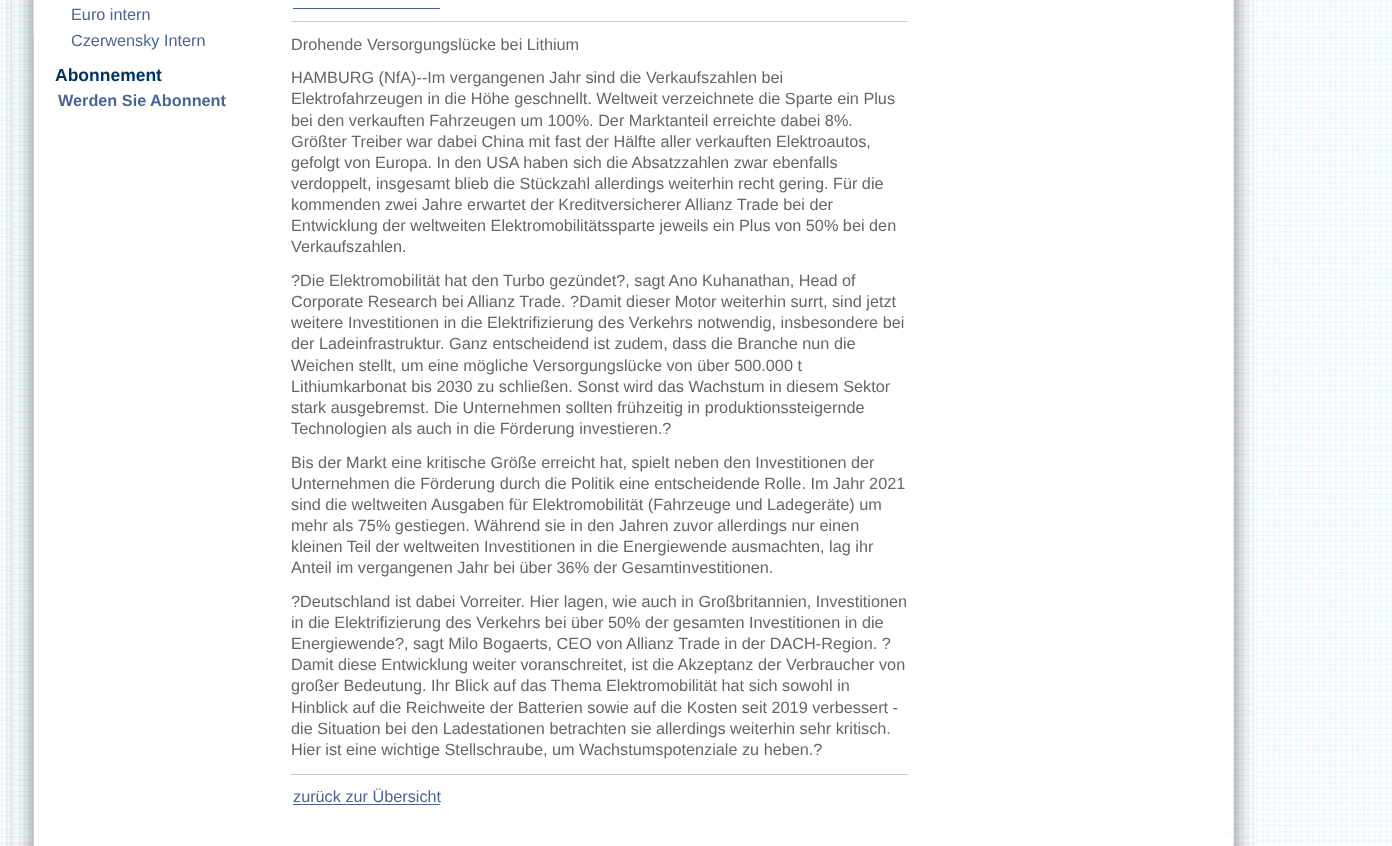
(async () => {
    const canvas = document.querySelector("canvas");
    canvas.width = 1392;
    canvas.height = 846;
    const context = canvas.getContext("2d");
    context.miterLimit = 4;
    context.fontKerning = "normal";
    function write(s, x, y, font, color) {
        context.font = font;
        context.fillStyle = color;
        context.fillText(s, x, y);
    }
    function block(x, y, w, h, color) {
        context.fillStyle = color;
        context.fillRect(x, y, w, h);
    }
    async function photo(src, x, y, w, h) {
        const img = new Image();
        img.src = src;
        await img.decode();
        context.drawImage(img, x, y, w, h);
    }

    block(0, 0, 1392, 846, "rgb(255, 255, 255)");
    await photo("media/1.png", 0, 0, 1392, 846);
    await photo("media/2.png", 12, 0, 1, 67);
    await photo("media/3.png", 12, 0, 1243, 834);
    context.beginPath();
    context.moveTo(1254.5, -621);
    context.lineTo(1254.5, 834);
    context.strokeStyle = "rgb(255, 255, 255)";
    context.lineWidth = 1.2;
    context.setLineDash([1.25, 1.25]);
    context.stroke();
    block(33, 0, 1, 36, "rgba(255, 255, 255, 0.25)");
    write("Euro intern", 71, 20, "16.25px Liberation Sans", "rgb(75, 100, 149)");
    write("Czerwensky Intern", 71, 46, "16.25px Liberation Sans", "rgb(75, 100, 149)");
    write("Abonnement", 55, 81, "bold 17.5px Liberation Sans", "rgb(0, 51, 102)");
    write("Werden Sie Abonnent", 58, 106, "bold 16.25px Liberation Sans", "rgb(75, 100, 149)");
    block(291, 21, 617, 1, "rgb(204, 204, 204)");
    block(293, 8, 147, 1, "rgb(75, 100, 149)");
    write("Drohende Versorgungslücke bei Lithium", 291, 50, "16.25px Liberation Sans", "rgb(102, 102, 102)");
    write("HAMBURG (NfA)--Im vergangenen Jahr sind die Verkaufszahlen bei", 291, 83, "16.25px Liberation Sans", "rgb(102, 102, 102)");
    write("Elektrofahrzeugen in die Höhe geschnellt. Weltweit verzeichnete die Sparte ein Plus", 291, 104, "16.25px Liberation Sans", "rgb(102, 102, 102)");
    write("bei den verkauften Fahrzeugen um 100%. Der Marktanteil erreichte dabei 8%.", 291, 126, "16.25px Liberation Sans", "rgb(102, 102, 102)");
    write("Größter Treiber war dabei China mit fast der Hälfte aller verkauften Elektroautos,", 291, 147, "16.25px Liberation Sans", "rgb(102, 102, 102)");
    write("gefolgt von Europa. In den USA haben sich die Absatzzahlen zwar ebenfalls", 291, 168, "16.25px Liberation Sans", "rgb(102, 102, 102)");
    write("verdoppelt, insgesamt blieb die Stückzahl allerdings weiterhin recht gering. Für die", 291, 189, "16.25px Liberation Sans", "rgb(102, 102, 102)");
    write("kommenden zwei Jahre erwartet der Kreditversicherer Allianz Trade bei der", 291, 210, "16.25px Liberation Sans", "rgb(102, 102, 102)");
    write("Entwicklung der weltweiten Elektromobilitätssparte jeweils ein Plus von 50% bei den", 291, 231, "16.25px Liberation Sans", "rgb(102, 102, 102)");
    write("Verkaufszahlen.", 291, 252, "16.25px Liberation Sans", "rgb(102, 102, 102)");
    write("?Die Elektromobilität hat den Turbo gezündet?, sagt Ano Kuhanathan, Head of", 291, 286, "16.25px Liberation Sans", "rgb(102, 102, 102)");
    write("Corporate Research bei Allianz Trade. ?Damit dieser Motor weiterhin surrt, sind jetzt", 291, 307, "16.25px Liberation Sans", "rgb(102, 102, 102)");
    write("weitere Investitionen in die Elektrifizierung des Verkehrs notwendig, insbesondere bei", 291, 328, "16.25px Liberation Sans", "rgb(102, 102, 102)");
    write("der Ladeinfrastruktur. Ganz entscheidend ist zudem, dass die Branche nun die", 291, 349, "16.25px Liberation Sans", "rgb(102, 102, 102)");
    write("Weichen stellt, um eine mögliche Versorgungslücke von über 500.000 t", 291, 371, "16.25px Liberation Sans", "rgb(102, 102, 102)");
    write("Lithiumkarbonat bis 2030 zu schließen. Sonst wird das Wachstum in diesem Sektor", 291, 392, "16.25px Liberation Sans", "rgb(102, 102, 102)");
    write("stark ausgebremst. Die Unternehmen sollten frühzeitig in produktionssteigernde", 291, 413, "16.25px Liberation Sans", "rgb(102, 102, 102)");
    write("Technologien als auch in die Förderung investieren.?", 291, 434, "16.25px Liberation Sans", "rgb(102, 102, 102)");
    write("Bis der Markt eine kritische Größe erreicht hat, spielt neben den Investitionen der", 291, 468, "16.25px Liberation Sans", "rgb(102, 102, 102)");
    write("Unternehmen die Förderung durch die Politik eine entscheidende Rolle. Im Jahr 2021", 291, 489, "16.25px Liberation Sans", "rgb(102, 102, 102)");
    write("sind die weltweiten Ausgaben für Elektromobilität (Fahrzeuge und Ladegeräte) um", 291, 510, "16.25px Liberation Sans", "rgb(102, 102, 102)");
    write("mehr als 75% gestiegen. Während sie in den Jahren zuvor allerdings nur einen", 291, 531, "16.25px Liberation Sans", "rgb(102, 102, 102)");
    write("kleinen Teil der weltweiten Investitionen in die Energiewende ausmachten, lag ihr", 291, 552, "16.25px Liberation Sans", "rgb(102, 102, 102)");
    write("Anteil im vergangenen Jahr bei über 36% der Gesamtinvestitionen.", 291, 573, "16.25px Liberation Sans", "rgb(102, 102, 102)");
    write("?Deutschland ist dabei Vorreiter. Hier lagen, wie auch in Großbritannien, Investitionen", 291, 607, "16.25px Liberation Sans", "rgb(102, 102, 102)");
    write("in die Elektrifizierung des Verkehrs bei über 50% der gesamten Investitionen in die", 291, 628, "16.25px Liberation Sans", "rgb(102, 102, 102)");
    write("Energiewende?, sagt Milo Bogaerts, CEO von Allianz Trade in der DACH-Region. ?", 291, 649, "16.25px Liberation Sans", "rgb(102, 102, 102)");
    write("Damit diese Entwicklung weiter voranschreitet, ist die Akzeptanz der Verbraucher von", 291, 670, "16.25px Liberation Sans", "rgb(102, 102, 102)");
    write("großer Bedeutung. Ihr Blick auf das Thema Elektromobilität hat sich sowohl in", 291, 691, "16.25px Liberation Sans", "rgb(102, 102, 102)");
    write("Hinblick auf die Reichweite der Batterien sowie auf die Kosten seit 2019 verbessert -", 291, 713, "16.25px Liberation Sans", "rgb(102, 102, 102)");
    write("die Situation bei den Ladestationen betrachten sie allerdings weiterhin sehr kritisch.", 291, 734, "16.25px Liberation Sans", "rgb(102, 102, 102)");
    write("Hier ist eine wichtige Stellschraube, um Wachstumspotenziale zu heben.?", 291, 755, "16.25px Liberation Sans", "rgb(102, 102, 102)");
    block(291, 774, 617, 1, "rgb(204, 204, 204)");
    write("zurück zur Übersicht", 293, 802, "16.25px Liberation Sans", "rgb(75, 100, 149)");
    block(293, 804, 147, 1, "rgb(75, 100, 149)");
    await photo("media/4.png", 12, 833, 1243, 13);
})();
